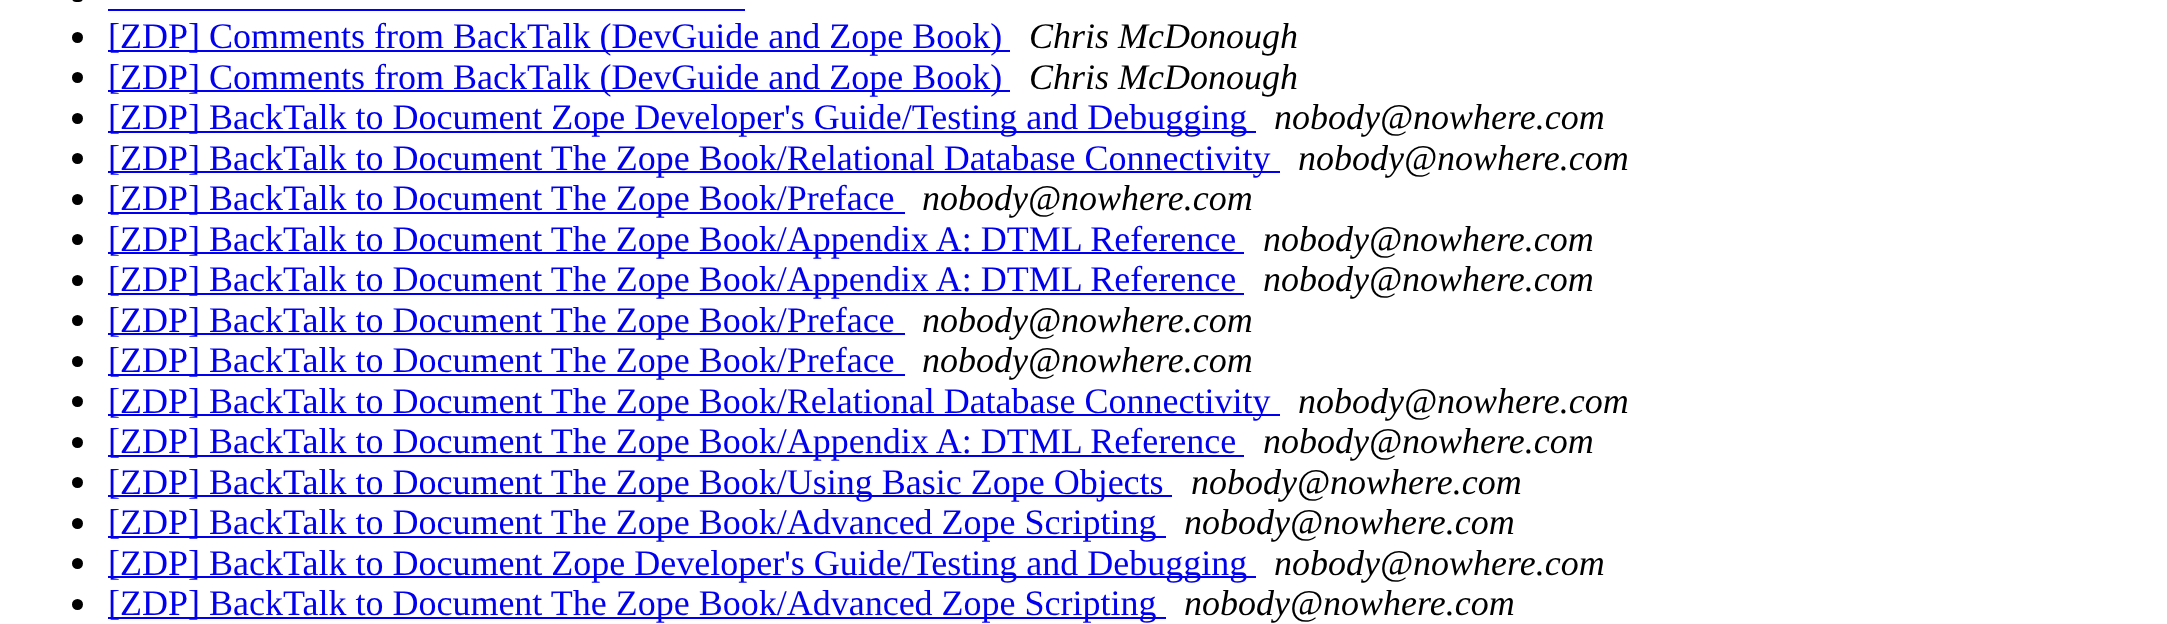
(async () => {
    const canvas = document.querySelector("canvas");
    canvas.width = 2167;
    canvas.height = 624;
    const context = canvas.getContext("2d");
    context.miterLimit = 4;
    context.fontKerning = "normal";
    function write(s, x, y, font, color) {
        context.font = font;
        context.fillStyle = color;
        context.fillText(s, x, y);
    }
    function block(x, y, w, h, color) {
        context.fillStyle = color;
        context.fillRect(x, y, w, h);
    }
    function card(x, y, w, h, r, color) {
        context.fillStyle = color;
        context.beginPath();
        context.roundRect(x, y, w, h, r);
        context.fill();
    }

    block(0, 0, 2167, 624, "rgb(255, 255, 255)");
    card(72, -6, 11, 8, 5.5, "rgb(0, 0, 0)");
    block(108, 9, 637, 2, "rgb(0, 0, 238)");
    context.fillStyle = "rgb(0, 0, 0)";
    context.beginPath();
    context.arc(77.5, 37.5, 5.5, 0, Math.PI * 2);
    context.fill();
    block(108, 50, 902, 2, "rgb(0, 0, 238)");
    write("[ZDP] Comments from BackTalk (DevGuide and Zope Book)", 108, 48, "36px Liberation Serif", "rgb(0, 0, 238)");
    write("Chris McDonough", 1029, 48, "italic 36px Liberation Serif", "rgb(0, 0, 0)");
    context.beginPath();
    context.arc(77.5, 77.5, 5.5, 0, Math.PI * 2);
    context.fill();
    block(108, 90, 902, 2, "rgb(0, 0, 238)");
    write("[ZDP] Comments from BackTalk (DevGuide and Zope Book)", 108, 89, "36px Liberation Serif", "rgb(0, 0, 238)");
    write("Chris McDonough", 1029, 89, "italic 36px Liberation Serif", "rgb(0, 0, 0)");
    context.beginPath();
    context.arc(77.5, 118.5, 5.5, 0, Math.PI * 2);
    context.fill();
    block(108, 131, 1148, 2, "rgb(0, 0, 238)");
    write("[ZDP] BackTalk to Document Zope Developer's Guide/Testing and Debugging", 108, 129, "36px Liberation Serif", "rgb(0, 0, 238)");
    write("nobody@nowhere.com", 1274, 129, "italic 36px Liberation Serif", "rgb(0, 0, 0)");
    context.beginPath();
    context.arc(77.5, 158.5, 5.5, 0, Math.PI * 2);
    context.fill();
    block(108, 171, 1172, 2, "rgb(0, 0, 238)");
    write("[ZDP] BackTalk to Document The Zope Book/Relational Database Connectivity", 108, 170, "36px Liberation Serif", "rgb(0, 0, 238)");
    write("nobody@nowhere.com", 1298, 170, "italic 36px Liberation Serif", "rgb(0, 0, 0)");
    context.beginPath();
    context.arc(77.5, 199.5, 5.5, 0, Math.PI * 2);
    context.fill();
    block(108, 212, 797, 2, "rgb(0, 0, 238)");
    write("[ZDP] BackTalk to Document The Zope Book/Preface", 108, 210, "36px Liberation Serif", "rgb(0, 0, 238)");
    write("nobody@nowhere.com", 922, 210, "italic 36px Liberation Serif", "rgb(0, 0, 0)");
    context.beginPath();
    context.arc(77.5, 239.5, 5.5, 0, Math.PI * 2);
    context.fill();
    block(108, 252, 1136, 2, "rgb(0, 0, 238)");
    write("[ZDP] BackTalk to Document The Zope Book/Appendix A: DTML Reference", 108, 251, "36px Liberation Serif", "rgb(0, 0, 238)");
    write("nobody@nowhere.com", 1263, 251, "italic 36px Liberation Serif", "rgb(0, 0, 0)");
    context.beginPath();
    context.arc(77.5, 280.5, 5.5, 0, Math.PI * 2);
    context.fill();
    block(108, 293, 1136, 2, "rgb(0, 0, 238)");
    write("[ZDP] BackTalk to Document The Zope Book/Appendix A: DTML Reference", 108, 291, "36px Liberation Serif", "rgb(0, 0, 238)");
    write("nobody@nowhere.com", 1263, 291, "italic 36px Liberation Serif", "rgb(0, 0, 0)");
    context.beginPath();
    context.arc(77.5, 320.5, 5.5, 0, Math.PI * 2);
    context.fill();
    block(108, 333, 797, 2, "rgb(0, 0, 238)");
    write("[ZDP] BackTalk to Document The Zope Book/Preface", 108, 332, "36px Liberation Serif", "rgb(0, 0, 238)");
    write("nobody@nowhere.com", 922, 332, "italic 36px Liberation Serif", "rgb(0, 0, 0)");
    context.beginPath();
    context.arc(77.5, 361.5, 5.5, 0, Math.PI * 2);
    context.fill();
    block(108, 374, 797, 2, "rgb(0, 0, 238)");
    write("[ZDP] BackTalk to Document The Zope Book/Preface", 108, 372, "36px Liberation Serif", "rgb(0, 0, 238)");
    write("nobody@nowhere.com", 922, 372, "italic 36px Liberation Serif", "rgb(0, 0, 0)");
    context.beginPath();
    context.arc(77.5, 401.5, 5.5, 0, Math.PI * 2);
    context.fill();
    block(108, 414, 1172, 2, "rgb(0, 0, 238)");
    write("[ZDP] BackTalk to Document The Zope Book/Relational Database Connectivity", 108, 413, "36px Liberation Serif", "rgb(0, 0, 238)");
    write("nobody@nowhere.com", 1298, 413, "italic 36px Liberation Serif", "rgb(0, 0, 0)");
    context.beginPath();
    context.arc(77.5, 442.5, 5.5, 0, Math.PI * 2);
    context.fill();
    block(108, 455, 1136, 2, "rgb(0, 0, 238)");
    write("[ZDP] BackTalk to Document The Zope Book/Appendix A: DTML Reference", 108, 453, "36px Liberation Serif", "rgb(0, 0, 238)");
    write("nobody@nowhere.com", 1263, 453, "italic 36px Liberation Serif", "rgb(0, 0, 0)");
    context.beginPath();
    context.arc(77.5, 482.5, 5.5, 0, Math.PI * 2);
    context.fill();
    block(108, 495, 1064, 2, "rgb(0, 0, 238)");
    write("[ZDP] BackTalk to Document The Zope Book/Using Basic Zope Objects", 108, 494, "36px Liberation Serif", "rgb(0, 0, 238)");
    write("nobody@nowhere.com", 1191, 494, "italic 36px Liberation Serif", "rgb(0, 0, 0)");
    context.beginPath();
    context.arc(77.5, 523.5, 5.5, 0, Math.PI * 2);
    context.fill();
    block(108, 536, 1058, 2, "rgb(0, 0, 238)");
    write("[ZDP] BackTalk to Document The Zope Book/Advanced Zope Scripting", 108, 534, "36px Liberation Serif", "rgb(0, 0, 238)");
    write("nobody@nowhere.com", 1184, 534, "italic 36px Liberation Serif", "rgb(0, 0, 0)");
    context.beginPath();
    context.arc(77.5, 563.5, 5.5, 0, Math.PI * 2);
    context.fill();
    block(108, 576, 1148, 2, "rgb(0, 0, 238)");
    write("[ZDP] BackTalk to Document Zope Developer's Guide/Testing and Debugging", 108, 575, "36px Liberation Serif", "rgb(0, 0, 238)");
    write("nobody@nowhere.com", 1274, 575, "italic 36px Liberation Serif", "rgb(0, 0, 0)");
    context.beginPath();
    context.arc(77.5, 604.5, 5.5, 0, Math.PI * 2);
    context.fill();
    block(108, 617, 1058, 2, "rgb(0, 0, 238)");
    write("[ZDP] BackTalk to Document The Zope Book/Advanced Zope Scripting", 108, 615, "36px Liberation Serif", "rgb(0, 0, 238)");
    write("nobody@nowhere.com", 1184, 615, "italic 36px Liberation Serif", "rgb(0, 0, 0)");
})();
